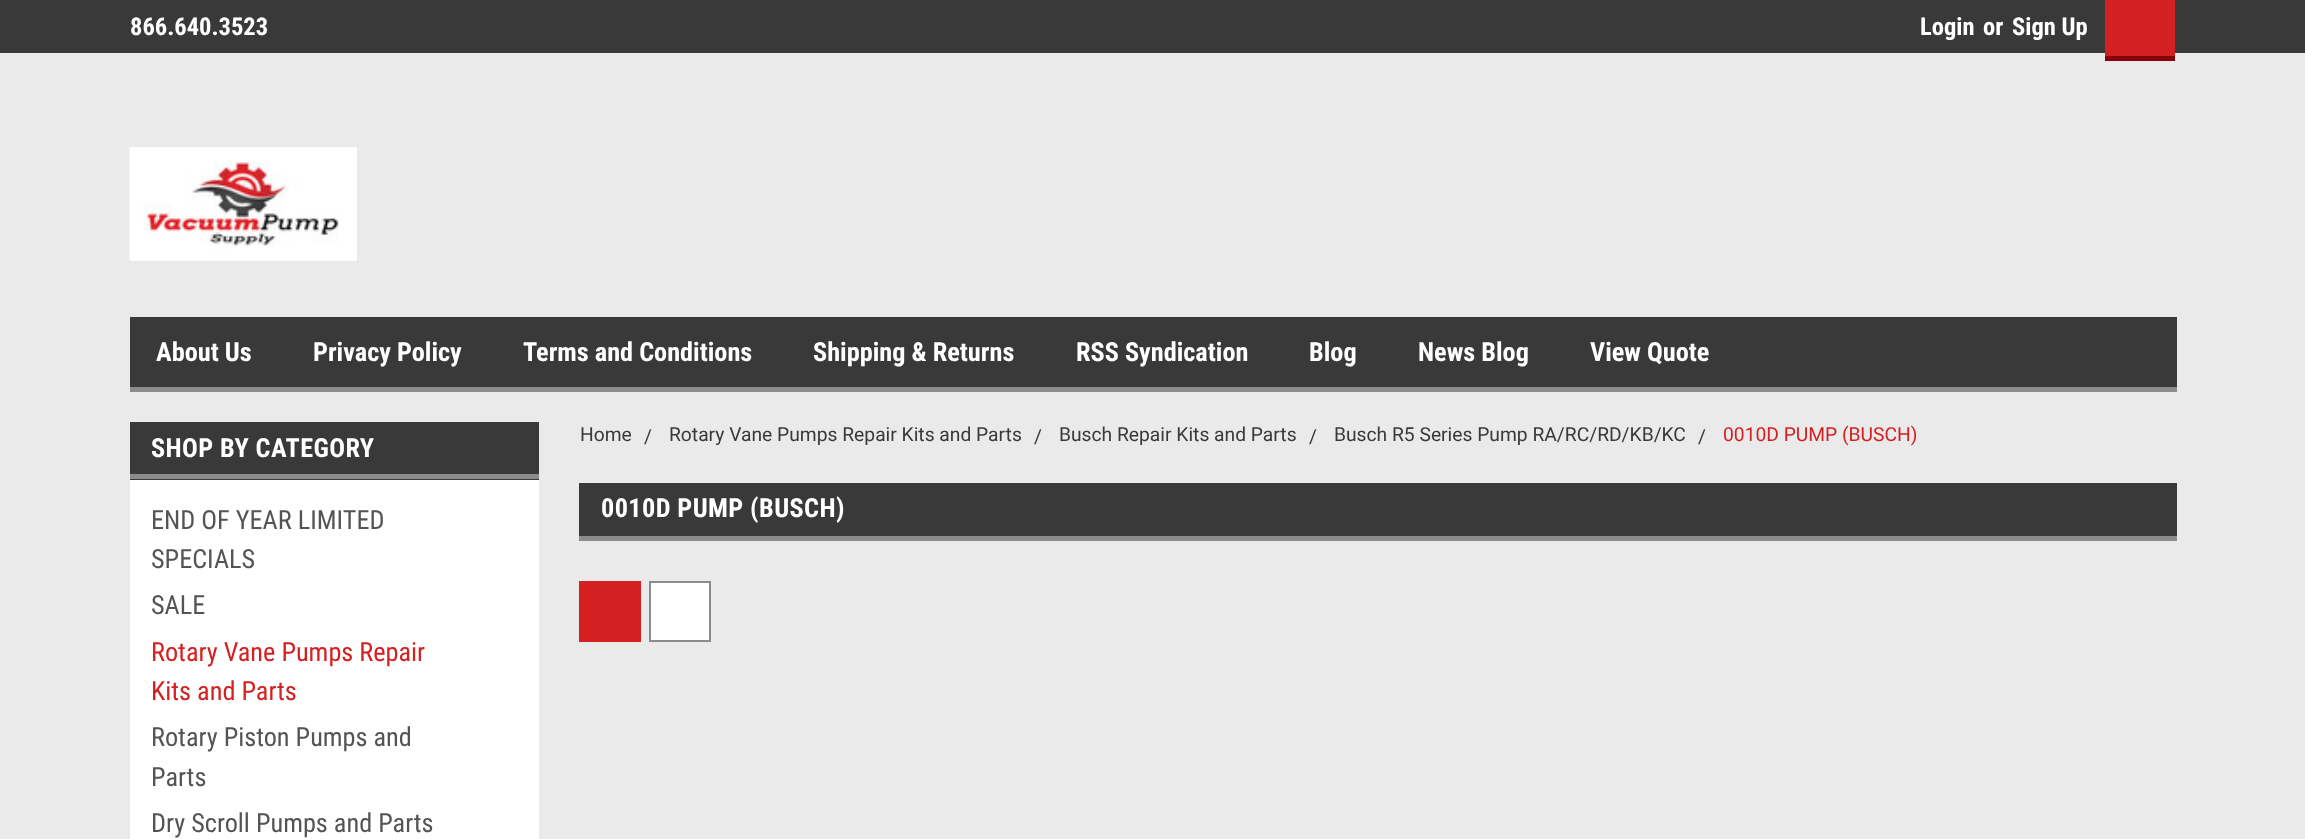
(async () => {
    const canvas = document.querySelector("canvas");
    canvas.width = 2305;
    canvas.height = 839;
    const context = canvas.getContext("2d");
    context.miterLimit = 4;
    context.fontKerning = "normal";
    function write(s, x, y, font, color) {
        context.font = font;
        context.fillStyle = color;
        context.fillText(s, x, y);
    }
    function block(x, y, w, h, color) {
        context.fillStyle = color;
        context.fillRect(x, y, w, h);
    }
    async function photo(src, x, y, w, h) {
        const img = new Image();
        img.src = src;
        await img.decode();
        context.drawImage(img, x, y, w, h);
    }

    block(0, 0, 2305, 839, "rgb(234, 234, 234)");
    block(0, 0, 2305, 53, "rgb(57, 57, 57)");
    write("866.640.3523", 130, 35, "bold 24.5px Roboto Condensed", "rgb(255, 255, 255)");
    write("Login", 1920, 35, "bold 24.5px Roboto Condensed", "rgb(255, 255, 255)");
    write("or", 1983, 35, "bold 24.5px Roboto Condensed", "rgb(255, 255, 255)");
    write("Sign Up", 2012, 35, "bold 24.5px Roboto Condensed", "rgb(255, 255, 255)");
    block(2105, 0, 70, 56, "rgb(212, 32, 32)");
    block(2105, 56, 70, 5, "rgb(134, 1, 9)");
    await photo("media/1.png", 129, 147, 228, 114);
    block(130, 317, 2047, 70, "rgb(57, 57, 57)");
    block(130, 387, 2047, 5, "rgb(139, 139, 139)");
    write("About Us", 156, 361, "bold 26.25px Roboto Condensed", "rgb(255, 255, 255)");
    write("Privacy Policy", 313, 361, "bold 26.25px Roboto Condensed", "rgb(255, 255, 255)");
    write("Terms and Conditions", 523, 361, "bold 26.25px Roboto Condensed", "rgb(255, 255, 255)");
    write("Shipping & Returns", 813, 361, "bold 26.25px Roboto Condensed", "rgb(255, 255, 255)");
    write("RSS Syndication", 1076, 361, "bold 26.25px Roboto Condensed", "rgb(255, 255, 255)");
    write("Blog", 1309, 361, "bold 26.25px Roboto Condensed", "rgb(255, 255, 255)");
    write("News Blog", 1418, 361, "bold 26.25px Roboto Condensed", "rgb(255, 255, 255)");
    write("View Quote", 1590, 361, "bold 26.25px Roboto Condensed", "rgb(255, 255, 255)");
    block(130, 422, 409, 58, "rgb(57, 57, 57)");
    block(130, 474, 409, 5, "rgb(139, 139, 139)");
    context.letterSpacing = "0.4px";
    write("SHOP BY CATEGORY", 151, 457, "bold 26.25px Roboto Condensed", "rgb(255, 255, 255)");
    block(130, 480, 409, 359, "rgb(255, 255, 255)");
    context.letterSpacing = "0px";
    write("END OF YEAR LIMITED", 151, 529, "26.25px Roboto Condensed", "rgb(84, 84, 84)");
    write("SPECIALS", 151, 568, "26.25px Roboto Condensed", "rgb(84, 84, 84)");
    write("SALE", 151, 614, "26.25px Roboto Condensed", "rgb(84, 84, 84)");
    write("Rotary Vane Pumps Repair", 151, 661, "26.25px Roboto Condensed", "rgb(212, 32, 32)");
    write("Kits and Parts", 151, 700, "26.25px Roboto Condensed", "rgb(212, 32, 32)");
    write("Rotary Piston Pumps and", 151, 746, "26.25px Roboto Condensed", "rgb(84, 84, 84)");
    write("Parts", 151, 786, "26.25px Roboto Condensed", "rgb(84, 84, 84)");
    write("Dry Scroll Pumps and Parts", 151, 832, "26.25px Roboto Condensed", "rgb(84, 84, 84)");
    write("Home", 580, 441, "19.25px Roboto", "rgb(57, 57, 57)");
    write("/", 644, 443, "19.25px Roboto", "rgb(57, 57, 57)");
    write("Rotary Vane Pumps Repair Kits and Parts", 669, 441, "19.25px Roboto", "rgb(57, 57, 57)");
    write("/", 1034, 443, "19.25px Roboto", "rgb(57, 57, 57)");
    write("Busch Repair Kits and Parts", 1059, 441, "19.25px Roboto", "rgb(57, 57, 57)");
    write("/", 1309, 443, "19.25px Roboto", "rgb(57, 57, 57)");
    write("Busch R5 Series Pump RA/RC/RD/KB/KC", 1334, 441, "19.25px Roboto", "rgb(57, 57, 57)");
    write("/", 1698, 443, "19.25px Roboto", "rgb(57, 57, 57)");
    write("0010D PUMP (BUSCH)", 1723, 441, "19.25px Roboto", "rgb(212, 32, 32)");
    block(579, 483, 1598, 53, "rgb(57, 57, 57)");
    block(579, 536, 1598, 5, "rgb(139, 139, 139)");
    context.letterSpacing = "0.4px";
    write("0010D PUMP (BUSCH)", 601, 517, "bold 26.25px Roboto Condensed", "rgb(255, 255, 255)");
    block(579, 581, 62, 61, "rgb(212, 32, 32)");
    context.fillStyle = "rgb(255, 255, 255)";
    context.beginPath();
    context.rect(650, 582, 60, 59);
    context.fill();
    context.strokeStyle = "rgb(139, 139, 139)";
    context.lineWidth = 2;
    context.stroke();
})();
